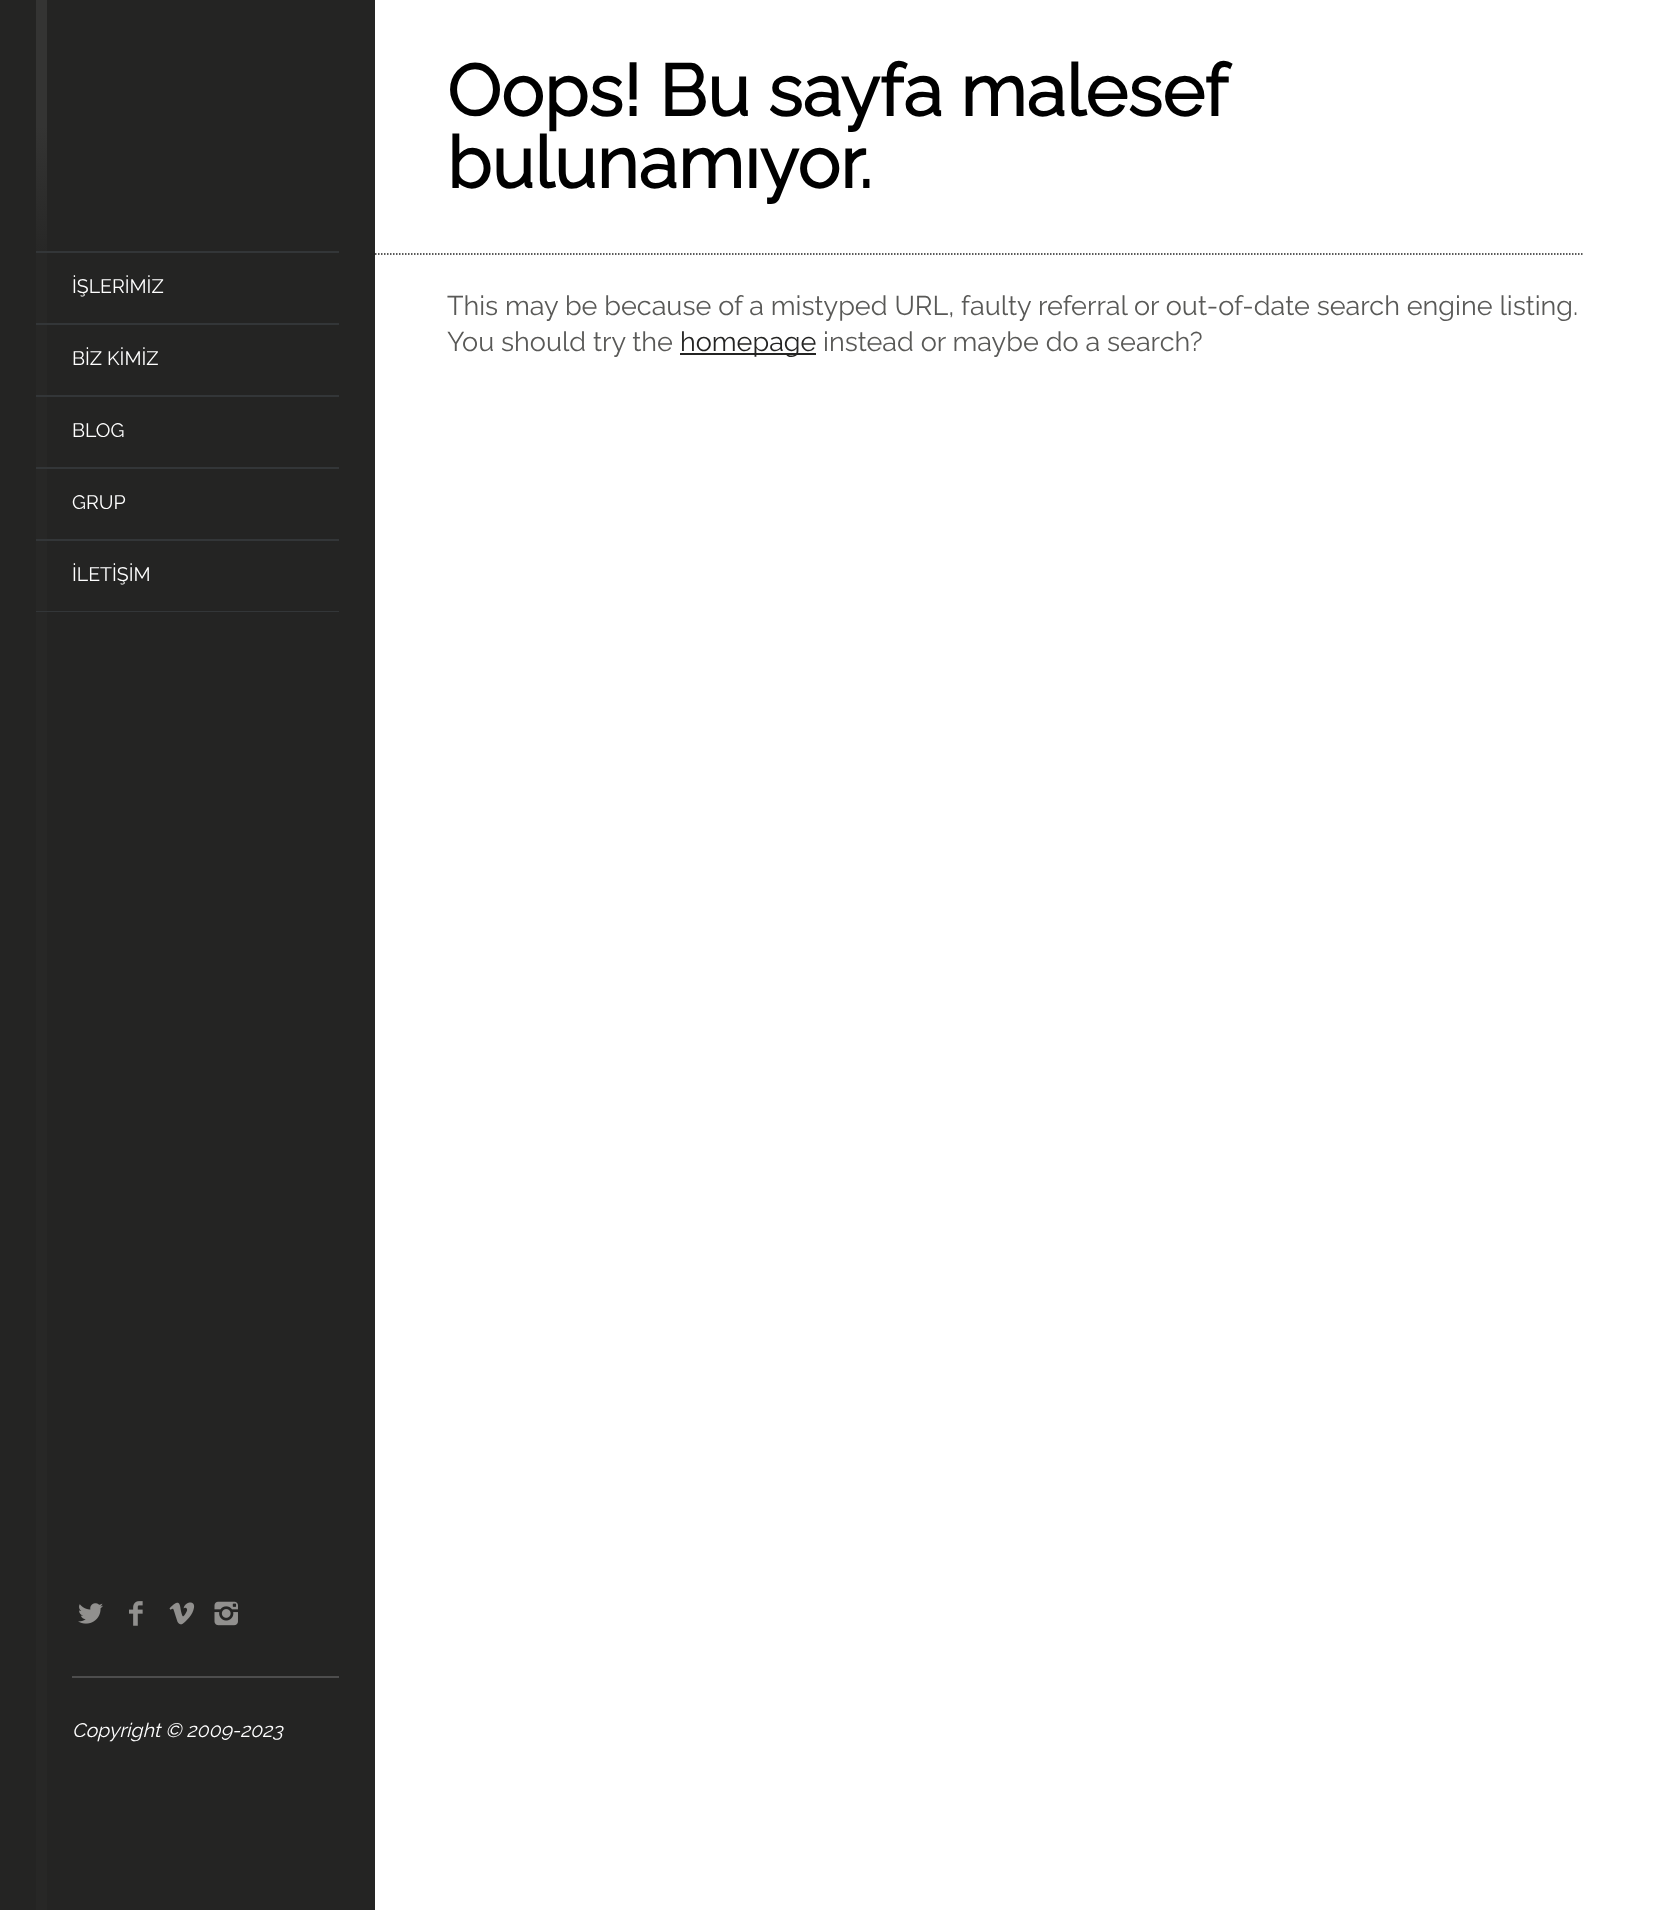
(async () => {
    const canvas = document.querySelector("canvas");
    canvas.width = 1654;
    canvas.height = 1910;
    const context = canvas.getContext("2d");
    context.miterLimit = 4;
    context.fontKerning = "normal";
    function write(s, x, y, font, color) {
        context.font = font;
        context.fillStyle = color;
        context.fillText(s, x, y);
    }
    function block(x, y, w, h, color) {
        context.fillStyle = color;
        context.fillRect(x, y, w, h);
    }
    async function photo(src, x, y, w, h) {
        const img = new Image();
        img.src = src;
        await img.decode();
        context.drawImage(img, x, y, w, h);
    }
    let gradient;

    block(0, 0, 1654, 1910, "rgb(255, 255, 255)");
    context.wordSpacing = "-0.5px";
    write("Oops! Bu sayfa malesef", 447, 116, "bold 72px Raleway", "rgb(0, 0, 0)");
    context.wordSpacing = "0px";
    write("bulunamıyor.", 447, 188, "bold 72px Raleway", "rgb(0, 0, 0)");
    context.beginPath();
    context.moveTo(375, 254);
    context.lineTo(1582.5, 254);
    context.strokeStyle = "rgb(36, 36, 35)";
    context.lineWidth = 1.5;
    context.setLineDash([1.5, 1.5]);
    context.stroke();
    write("This may be because of a mistyped URL, faulty referral or out-of-date search engine listing.", 447, 315, "100 27px Raleway", "rgb(89, 89, 87)");
    write("You should try the", 447, 351, "100 27px Raleway", "rgb(89, 89, 87)");
    block(680, 353, 136, 2, "rgb(36, 36, 35)");
    write("homepage", 680, 351, "100 27px Raleway", "rgb(36, 36, 35)");
    write("instead or maybe do a search?", 823, 351, "100 27px Raleway", "rgb(89, 89, 87)");
    block(0, 0, 375, 1910, "rgb(36, 36, 35)");
    block(36, 253, 11, 1657, "rgb(39, 39, 38)");
    gradient = context.createLinearGradient(37, 0, 37, 252);
    gradient.addColorStop(0.5, "rgb(52, 52, 51)");
    gradient.addColorStop(1, "rgb(39, 39, 38)");
    context.fillStyle = gradient;
    context.fillRect(36, 0, 11, 251);
    block(36, 251, 303, 2, "rgb(51, 54, 56)");
    block(36, 323, 303, 2, "rgb(51, 54, 56)");
    write("İŞLERİMİZ", 72, 293, "100 19.5px Raleway", "rgb(255, 255, 255)");
    block(36, 395, 303, 2, "rgb(51, 54, 56)");
    write("BİZ KİMİZ", 72, 365, "100 19.5px Raleway", "rgb(255, 255, 255)");
    block(36, 467, 303, 2, "rgb(51, 54, 56)");
    write("BLOG", 72, 437, "100 19.5px Raleway", "rgb(255, 255, 255)");
    block(36, 539, 303, 2, "rgb(51, 54, 56)");
    write("GRUP", 72, 509, "100 19.5px Raleway", "rgb(255, 255, 255)");
    block(36, 611, 303, 1, "rgb(51, 54, 56)");
    write("İLETİŞİM", 72, 581, "100 19.5px Raleway", "rgb(255, 255, 255)");
    block(72, 1676, 267, 2, "rgb(77, 77, 77)");
    await photo("media/1.png", 78, 1603, 25, 21);
    await photo("media/2.png", 129, 1601, 14, 25);
    await photo("media/3.png", 169, 1602, 26, 23);
    await photo("media/4.png", 214, 1601, 24, 25);
    write("Copyright © 2009-2023", 72, 1737, "italic 100 19.5px Raleway", "rgb(255, 255, 255)");
})();
